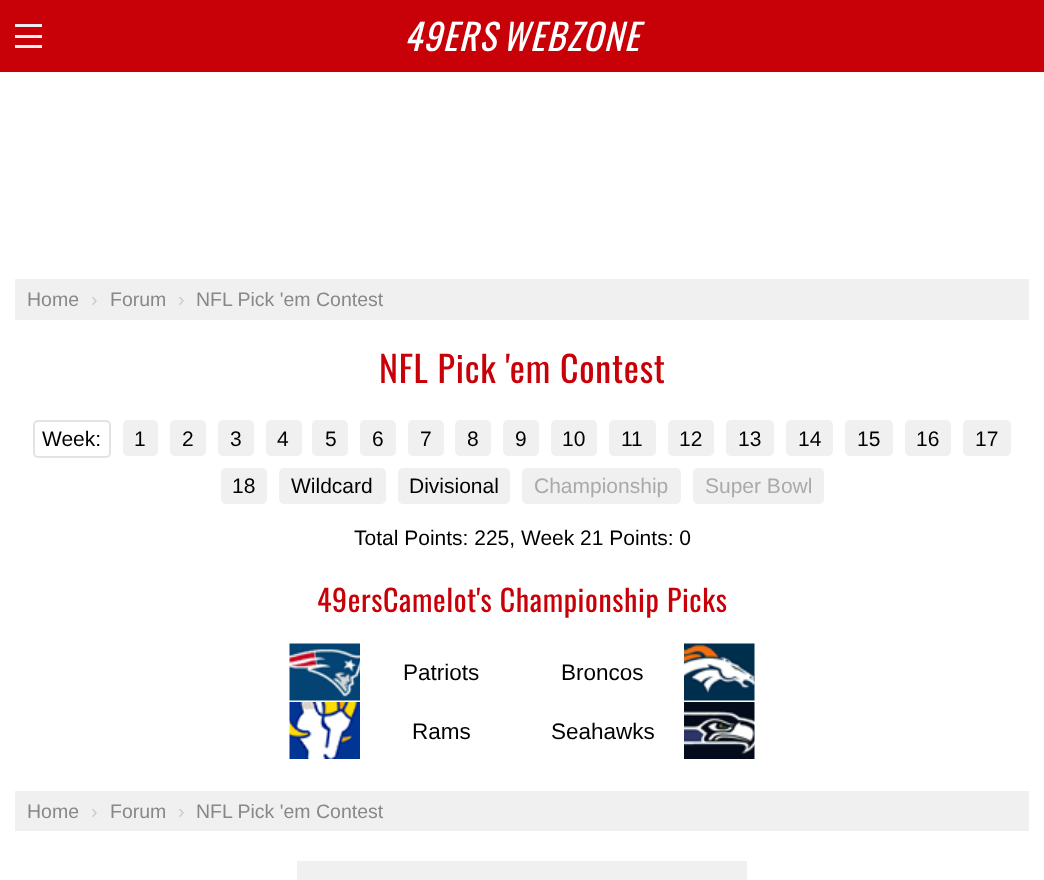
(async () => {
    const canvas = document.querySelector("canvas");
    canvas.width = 1044;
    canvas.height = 880;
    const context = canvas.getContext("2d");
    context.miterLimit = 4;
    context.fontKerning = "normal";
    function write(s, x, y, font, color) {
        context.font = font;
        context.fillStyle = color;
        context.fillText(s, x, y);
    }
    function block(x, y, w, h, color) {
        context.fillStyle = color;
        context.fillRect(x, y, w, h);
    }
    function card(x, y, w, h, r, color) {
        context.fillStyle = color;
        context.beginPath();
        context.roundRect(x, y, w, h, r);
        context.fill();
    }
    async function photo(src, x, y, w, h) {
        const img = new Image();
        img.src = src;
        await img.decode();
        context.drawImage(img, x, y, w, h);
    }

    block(0, 0, 1044, 880, "rgb(255, 255, 255)");
    block(0, 0, 1044, 72, "rgb(200, 0, 8)");
    block(15, 24, 27, 3, "rgb(238, 238, 238)");
    block(15, 45, 27, 3, "rgb(238, 238, 238)");
    block(15, 35, 27, 3, "rgb(238, 238, 238)");
    context.letterSpacing = "1.5px";
    write("49ERS", 404, 51, "italic 36px Oswald", "rgb(255, 255, 255)");
    write("WEBZONE", 502, 51, "italic 36px Oswald", "rgb(255, 255, 255)");
    block(15, 279, 1014, 41, "rgb(240, 240, 240)");
    context.letterSpacing = "0px";
    write("Home", 27, 306, "19.5px Liberation Sans", "rgb(136, 136, 136)");
    write("›", 91, 306, "19.5px Liberation Sans", "rgb(204, 204, 204)");
    write("Forum", 110, 306, "19.5px Liberation Sans", "rgb(136, 136, 136)");
    write("›", 178, 306, "19.5px Liberation Sans", "rgb(204, 204, 204)");
    write("NFL Pick 'em Contest", 196, 306, "19.5px Liberation Sans", "rgb(136, 136, 136)");
    context.letterSpacing = "0.75px";
    write("NFL Pick 'em Contest", 379, 383, "36px Oswald", "rgb(200, 0, 8)");
    context.beginPath();
    context.roundRect(34, 421, 76, 36, 4);
    context.strokeStyle = "rgb(227, 227, 227)";
    context.lineWidth = 2;
    context.stroke();
    context.letterSpacing = "0px";
    write("Week:", 42, 446, "21px Liberation Sans", "rgb(0, 0, 0)");
    card(123, 420, 35, 36, 5, "rgb(240, 240, 240)");
    write("1", 134, 446, "21px Liberation Sans", "rgb(0, 0, 0)");
    card(170, 420, 36, 36, 5, "rgb(240, 240, 240)");
    write("2", 182, 446, "21px Liberation Sans", "rgb(0, 0, 0)");
    card(218, 420, 36, 36, 5, "rgb(240, 240, 240)");
    write("3", 230, 446, "21px Liberation Sans", "rgb(0, 0, 0)");
    card(266, 420, 36, 36, 5, "rgb(240, 240, 240)");
    write("4", 277, 446, "21px Liberation Sans", "rgb(0, 0, 0)");
    card(312, 420, 36, 36, 5, "rgb(240, 240, 240)");
    write("5", 325, 446, "21px Liberation Sans", "rgb(0, 0, 0)");
    card(360, 420, 36, 36, 5, "rgb(240, 240, 240)");
    write("6", 372, 446, "21px Liberation Sans", "rgb(0, 0, 0)");
    card(408, 420, 36, 36, 5, "rgb(240, 240, 240)");
    write("7", 420, 446, "21px Liberation Sans", "rgb(0, 0, 0)");
    card(455, 420, 36, 36, 5, "rgb(240, 240, 240)");
    write("8", 467, 446, "21px Liberation Sans", "rgb(0, 0, 0)");
    card(503, 420, 36, 36, 5, "rgb(240, 240, 240)");
    write("9", 515, 446, "21px Liberation Sans", "rgb(0, 0, 0)");
    card(551, 420, 46, 36, 5, "rgb(240, 240, 240)");
    write("10", 562, 446, "21px Liberation Sans", "rgb(0, 0, 0)");
    card(609, 420, 47, 36, 5, "rgb(240, 240, 240)");
    write("11", 621, 446, "21px Liberation Sans", "rgb(0, 0, 0)");
    card(668, 420, 46, 36, 5, "rgb(240, 240, 240)");
    write("12", 679, 446, "21px Liberation Sans", "rgb(0, 0, 0)");
    card(726, 420, 48, 36, 5, "rgb(240, 240, 240)");
    write("13", 738, 446, "21px Liberation Sans", "rgb(0, 0, 0)");
    card(786, 420, 47, 36, 5, "rgb(240, 240, 240)");
    write("14", 798, 446, "21px Liberation Sans", "rgb(0, 0, 0)");
    card(845, 420, 48, 36, 5, "rgb(240, 240, 240)");
    write("15", 857, 446, "21px Liberation Sans", "rgb(0, 0, 0)");
    card(905, 420, 46, 36, 5, "rgb(240, 240, 240)");
    write("16", 916, 446, "21px Liberation Sans", "rgb(0, 0, 0)");
    card(963, 420, 48, 36, 5, "rgb(240, 240, 240)");
    write("17", 975, 446, "21px Liberation Sans", "rgb(0, 0, 0)");
    card(221, 468, 46, 36, 5, "rgb(240, 240, 240)");
    write("18", 232, 493, "21px Liberation Sans", "rgb(0, 0, 0)");
    card(279, 468, 107, 36, 5, "rgb(240, 240, 240)");
    write("Wildcard", 291, 493, "21px Liberation Sans", "rgb(0, 0, 0)");
    card(398, 468, 112, 36, 5, "rgb(240, 240, 240)");
    write("Divisional", 409, 493, "21px Liberation Sans", "rgb(0, 0, 0)");
    card(522, 468, 159, 36, 5, "rgb(240, 240, 240)");
    write("Championship", 534, 493, "21px Liberation Sans", "rgb(170, 170, 170)");
    card(693, 468, 131, 36, 5, "rgb(240, 240, 240)");
    write("Super Bowl", 705, 493, "21px Liberation Sans", "rgb(170, 170, 170)");
    write("Total Points: 225, Week 21 Points: 0", 354, 545, "21px Liberation Sans", "rgb(0, 0, 0)");
    context.letterSpacing = "0.6px";
    write("49ersCamelot's Championship Picks", 317, 612, "30px Oswald", "rgb(200, 0, 8)");
    await photo("media/1.png", 289, 643, 71, 58);
    context.letterSpacing = "0px";
    write("Patriots", 403, 680, "22.5px Liberation Sans", "rgb(0, 0, 0)");
    write("Broncos", 561, 680, "22.5px Liberation Sans", "rgb(0, 0, 0)");
    await photo("media/2.png", 684, 643, 71, 58);
    await photo("media/3.png", 289, 702, 71, 57);
    write("Rams", 412, 739, "22.5px Liberation Sans", "rgb(0, 0, 0)");
    write("Seahawks", 551, 739, "22.5px Liberation Sans", "rgb(0, 0, 0)");
    await photo("media/4.png", 684, 702, 71, 57);
    block(15, 791, 1014, 40, "rgb(240, 240, 240)");
    write("Home", 27, 818, "19.5px Liberation Sans", "rgb(136, 136, 136)");
    write("›", 91, 818, "19.5px Liberation Sans", "rgb(204, 204, 204)");
    write("Forum", 110, 818, "19.5px Liberation Sans", "rgb(136, 136, 136)");
    write("›", 178, 818, "19.5px Liberation Sans", "rgb(204, 204, 204)");
    write("NFL Pick 'em Contest", 196, 818, "19.5px Liberation Sans", "rgb(136, 136, 136)");
    block(297, 861, 450, 19, "rgb(240, 240, 240)");
})();
